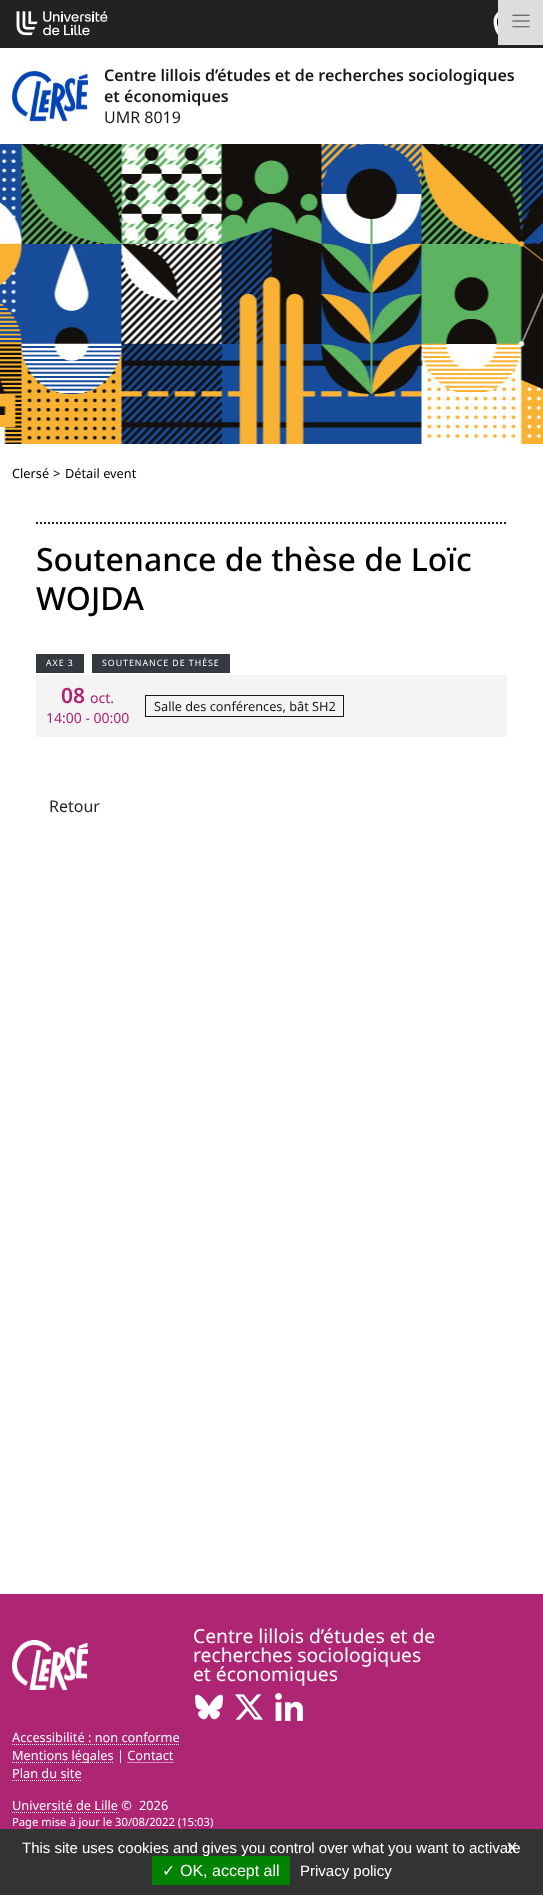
(async () => {
    const canvas = document.querySelector("canvas");
    canvas.width = 543;
    canvas.height = 1895;
    const context = canvas.getContext("2d");
    context.miterLimit = 4;
    context.fontKerning = "normal";
    function write(s, x, y, font, color) {
        context.font = font;
        context.fillStyle = color;
        context.fillText(s, x, y);
    }
    function block(x, y, w, h, color) {
        context.fillStyle = color;
        context.fillRect(x, y, w, h);
    }
    async function photo(src, x, y, w, h) {
        const img = new Image();
        img.src = src;
        await img.decode();
        context.drawImage(img, x, y, w, h);
    }

    block(0, 0, 543, 1895, "rgb(255, 255, 255)");
    block(0, 0, 543, 48, "rgb(34, 34, 34)");
    await photo("media/1.png", 16, 11, 92, 25);
    await photo("media/2.png", 493, 11, 5, 24);
    block(498, 0, 45, 45, "rgb(221, 221, 221)");
    await photo("media/3.png", 512, 14, 18, 14);
    await photo("media/4.png", 12, 71, 76, 51);
    write("Centre lillois d’études et de recherches sociologiques", 104, 81, "600 16px Noto Sans", "rgb(24, 24, 24)");
    write("et économiques", 104, 102, "600 16px Noto Sans", "rgb(24, 24, 24)");
    write("UMR 8019", 104, 123, "16px Noto Sans", "rgb(24, 24, 24)");
    await photo("media/5.png", 0, 144, 543, 300);
    write("Clersé", 12, 478, "12.75px Noto Sans", "rgb(0, 0, 0)");
    write(">", 53, 478, "12.75px Noto Sans", "rgb(0, 0, 0)");
    write("Détail event", 65, 478, "12.75px Noto Sans", "rgb(0, 0, 0)");
    context.beginPath();
    context.moveTo(36, 523);
    context.lineTo(507, 523);
    context.strokeStyle = "rgb(34, 34, 34)";
    context.lineWidth = 2;
    context.setLineDash([2, 2]);
    context.stroke();
    write("Soutenance de thèse de Loïc", 36, 571, "500 32px Noto Sans", "rgb(0, 0, 0)");
    write("WOJDA", 36, 610, "500 32px Noto Sans", "rgb(0, 0, 0)");
    block(36, 654, 48, 19, "rgb(52, 58, 64)");
    context.letterSpacing = "1px";
    write("AXE 3", 46, 666, "8.75px Noto Sans", "rgb(255, 255, 255)");
    block(92, 654, 138, 19, "rgb(52, 58, 64)");
    write("SOUTENANCE DE THÈSE", 102, 666, "8.75px Noto Sans", "rgb(255, 255, 255)");
    block(36, 675, 471, 62, "rgb(244, 244, 244)");
    context.letterSpacing = "0px";
    write("08", 61, 703, "600 21px Noto Sans", "rgb(174, 37, 115)");
    write("oct.", 90, 703, "14px Noto Sans", "rgb(174, 37, 115)");
    write("14:00 - 00:00", 46, 723, "14px Noto Sans", "rgb(174, 37, 115)");
    context.strokeStyle = "rgb(24, 24, 24)";
    context.lineWidth = 1;
    context.setLineDash([]);
    context.strokeRect(145.5, 695.5, 198, 21);
    write("Salle des conférences, bât SH2", 154, 711, "12.75px Noto Sans", "rgb(24, 24, 24)");
    write("Retour", 49, 812, "16px Noto Sans", "rgb(33, 37, 41)");
    block(0, 1594, 543, 235, "rgb(174, 37, 115)");
    await photo("media/6.png", 12, 1640, 76, 50);
    write("Centre lillois d’études et de", 193, 1643, "19.25px Noto Sans", "rgb(255, 255, 255)");
    write("recherches sociologiques", 193, 1662, "19.25px Noto Sans", "rgb(255, 255, 255)");
    write("et économiques", 193, 1681, "19.25px Noto Sans", "rgb(255, 255, 255)");
    await photo("media/7.png", 195, 1694, 28, 26);
    await photo("media/8.png", 235, 1694, 28, 26);
    await photo("media/9.png", 275, 1693, 28, 28);
    write("Accessibilité : non conforme", 12, 1742, "12.75px Noto Sans", "rgb(255, 255, 255)");
    context.beginPath();
    context.moveTo(12, 1744.5);
    context.lineTo(180, 1744.5);
    context.strokeStyle = "rgb(255, 255, 255)";
    context.setLineDash([1, 1]);
    context.stroke();
    context.beginPath();
    context.moveTo(12, 1762.5);
    context.lineTo(114, 1762.5);
    context.stroke();
    write("Mentions légales | Contact", 12, 1760, "12.75px Noto Sans", "rgb(255, 255, 255)");
    context.beginPath();
    context.moveTo(127.5, 1762.5);
    context.lineTo(174, 1762.5);
    context.stroke();
    write("Plan du site", 12, 1778, "12.75px Noto Sans", "rgb(255, 255, 255)");
    context.beginPath();
    context.moveTo(12, 1780.5);
    context.lineTo(82, 1780.5);
    context.stroke();
    write("Université de Lille ©", 12, 1810, "12.75px Noto Sans", "rgb(255, 255, 255)");
    context.beginPath();
    context.moveTo(12, 1812.5);
    context.lineTo(118.5, 1812.5);
    context.stroke();
    write("2026", 139, 1810, "12.75px Noto Sans", "rgb(255, 255, 255)");
    write("Page mise à jour le 30/08/2022 (15:03)", 12, 1826, "11.25px Noto Sans", "rgb(255, 255, 255)");
    block(0, 1829, 543, 66, "rgb(51, 51, 51)");
    write("This site uses cookies and gives you control over what you want to activate", 22, 1853, "15px Liberation Sans", "rgb(255, 255, 255)");
    write("X", 507, 1853, "15px Liberation Sans", "rgb(255, 255, 255)");
    block(152, 1856, 138, 29, "rgb(0, 131, 0)");
    write("✓", 162, 1876, "16px DejaVu Sans", "rgb(255, 255, 255)");
    write("OK, accept all", 180, 1876, "16px Liberation Sans", "rgb(255, 255, 255)");
    write("Privacy policy", 300, 1876, "15px Liberation Sans", "rgb(255, 255, 255)");
})();
